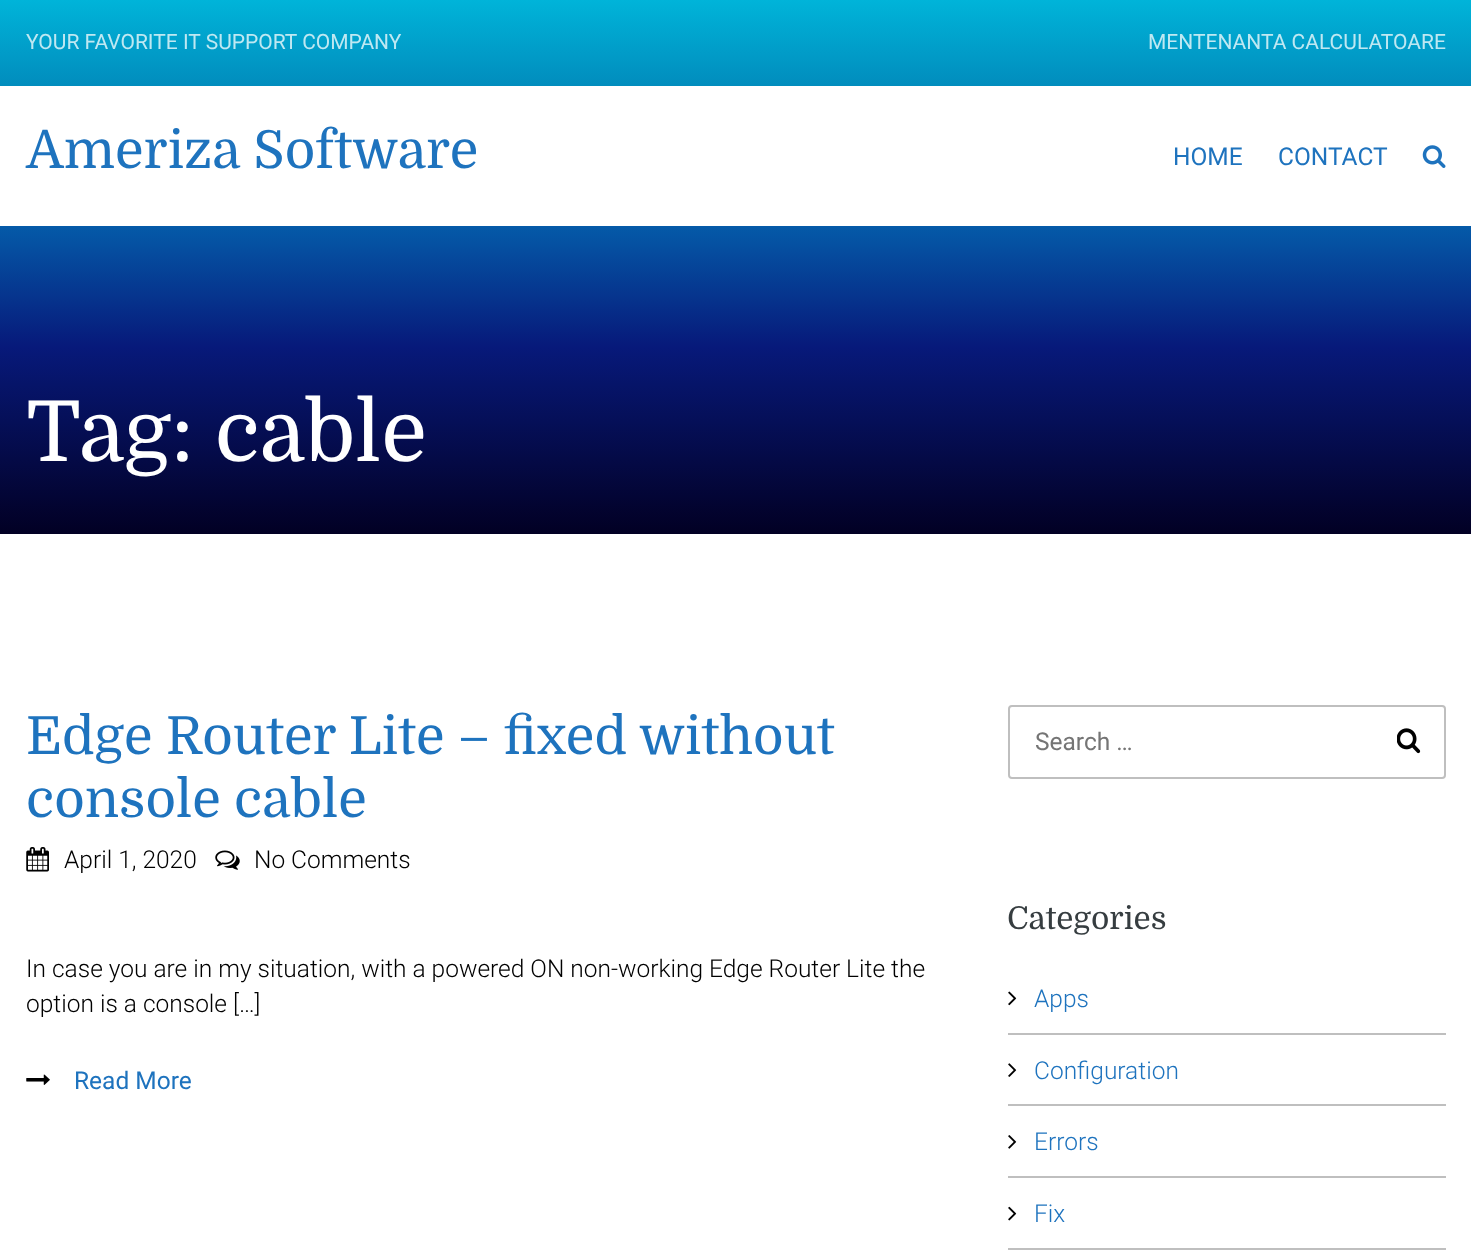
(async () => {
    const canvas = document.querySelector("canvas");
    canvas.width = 1471;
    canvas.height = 1257;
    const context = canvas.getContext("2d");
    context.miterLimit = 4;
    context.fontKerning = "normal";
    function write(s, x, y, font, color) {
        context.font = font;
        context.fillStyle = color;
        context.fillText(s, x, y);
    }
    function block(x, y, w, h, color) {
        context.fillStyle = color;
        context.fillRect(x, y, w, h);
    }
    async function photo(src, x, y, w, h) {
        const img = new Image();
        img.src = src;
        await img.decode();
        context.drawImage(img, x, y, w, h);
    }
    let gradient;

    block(0, 0, 1471, 1257, "rgb(255, 255, 255)");
    gradient = context.createLinearGradient(736, 534, 736, 0);
    gradient.addColorStop(0, "rgb(2, 0, 36)");
    gradient.addColorStop(0.35, "rgb(7, 25, 122)");
    gradient.addColorStop(1, "rgb(0, 212, 255)");
    context.fillStyle = gradient;
    context.fillRect(0, 226, 1471, 308);
    gradient = context.createLinearGradient(736, 534, 736, 0);
    gradient.addColorStop(0, "rgb(2, 0, 31)");
    gradient.addColorStop(0.35, "rgb(6, 21, 104)");
    gradient.addColorStop(1, "rgb(0, 180, 217)");
    context.fillStyle = gradient;
    context.fillRect(0, 0, 1471, 86);
    write("YOUR FAVORITE IT SUPPORT COMPANY", 26, 49, "21px Roboto", "rgb(191, 232, 242)");
    write("MENTENANTA CALCULATOARE", 1148, 49, "21px Roboto", "rgb(191, 232, 242)");
    write("Ameriza Software", 26, 168, "52.5px Domine", "rgb(30, 115, 190)");
    write("HOME", 1173, 165, "24.5px Roboto", "rgb(30, 115, 190)");
    write("CONTACT", 1278, 165, "24.5px Roboto", "rgb(30, 115, 190)");
    await photo("media/1.png", 1422, 145, 24, 23);
    write("Tag: cable", 26, 461, "84px Domine", "rgb(255, 255, 255)");
    write("Edge Router Lite – fixed without", 26, 754, "52.5px Domine", "rgb(30, 115, 190)");
    write("console cable", 26, 817, "52.5px Domine", "rgb(30, 115, 190)");
    await photo("media/2.png", 26, 847, 23, 25);
    write("April 1, 2020", 64, 868, "300 24.5px Roboto", "rgb(0, 0, 0)");
    await photo("media/3.png", 215, 850, 25, 20);
    write("No Comments", 254, 868, "300 24.5px Roboto", "rgb(0, 0, 0)");
    write("In case you are in my situation, with a powered ON non-working Edge Router Lite the", 26, 977, "300 24.5px Roboto", "rgb(0, 0, 0)");
    write("option is a console […]", 26, 1012, "300 24.5px Roboto", "rgb(0, 0, 0)");
    await photo("media/4.png", 26, 1074, 24, 11);
    write("Read More", 74, 1089, "24.5px Roboto", "rgb(30, 115, 190)");
    await photo("media/5.png", 1397, 728, 24, 26);
    context.beginPath();
    context.roundRect(1009, 706, 436, 72, 3);
    context.strokeStyle = "rgb(191, 191, 191)";
    context.lineWidth = 2;
    context.stroke();
    write("Search …", 1035, 750, "24.5px Roboto", "rgb(117, 117, 117)");
    write("Categories", 1007, 929, "31.5px Domine", "rgb(54, 61, 64)");
    block(1008, 1033, 438, 2, "rgb(191, 191, 191)");
    await photo("media/6.png", 1008, 991, 9, 15);
    write("Apps", 1034, 1007, "300 24.5px Roboto", "rgb(30, 115, 190)");
    block(1008, 1104, 438, 2, "rgb(191, 191, 191)");
    await photo("media/7.png", 1008, 1063, 9, 14);
    write("Configuration", 1034, 1079, "300 24.5px Roboto", "rgb(30, 115, 190)");
    block(1008, 1176, 438, 2, "rgb(191, 191, 191)");
    await photo("media/8.png", 1008, 1135, 9, 14);
    write("Errors", 1034, 1150, "300 24.5px Roboto", "rgb(30, 115, 190)");
    block(1008, 1248, 438, 2, "rgb(191, 191, 191)");
    await photo("media/9.png", 1008, 1206, 9, 15);
    write("Fix", 1034, 1222, "300 24.5px Roboto", "rgb(30, 115, 190)");
})();
